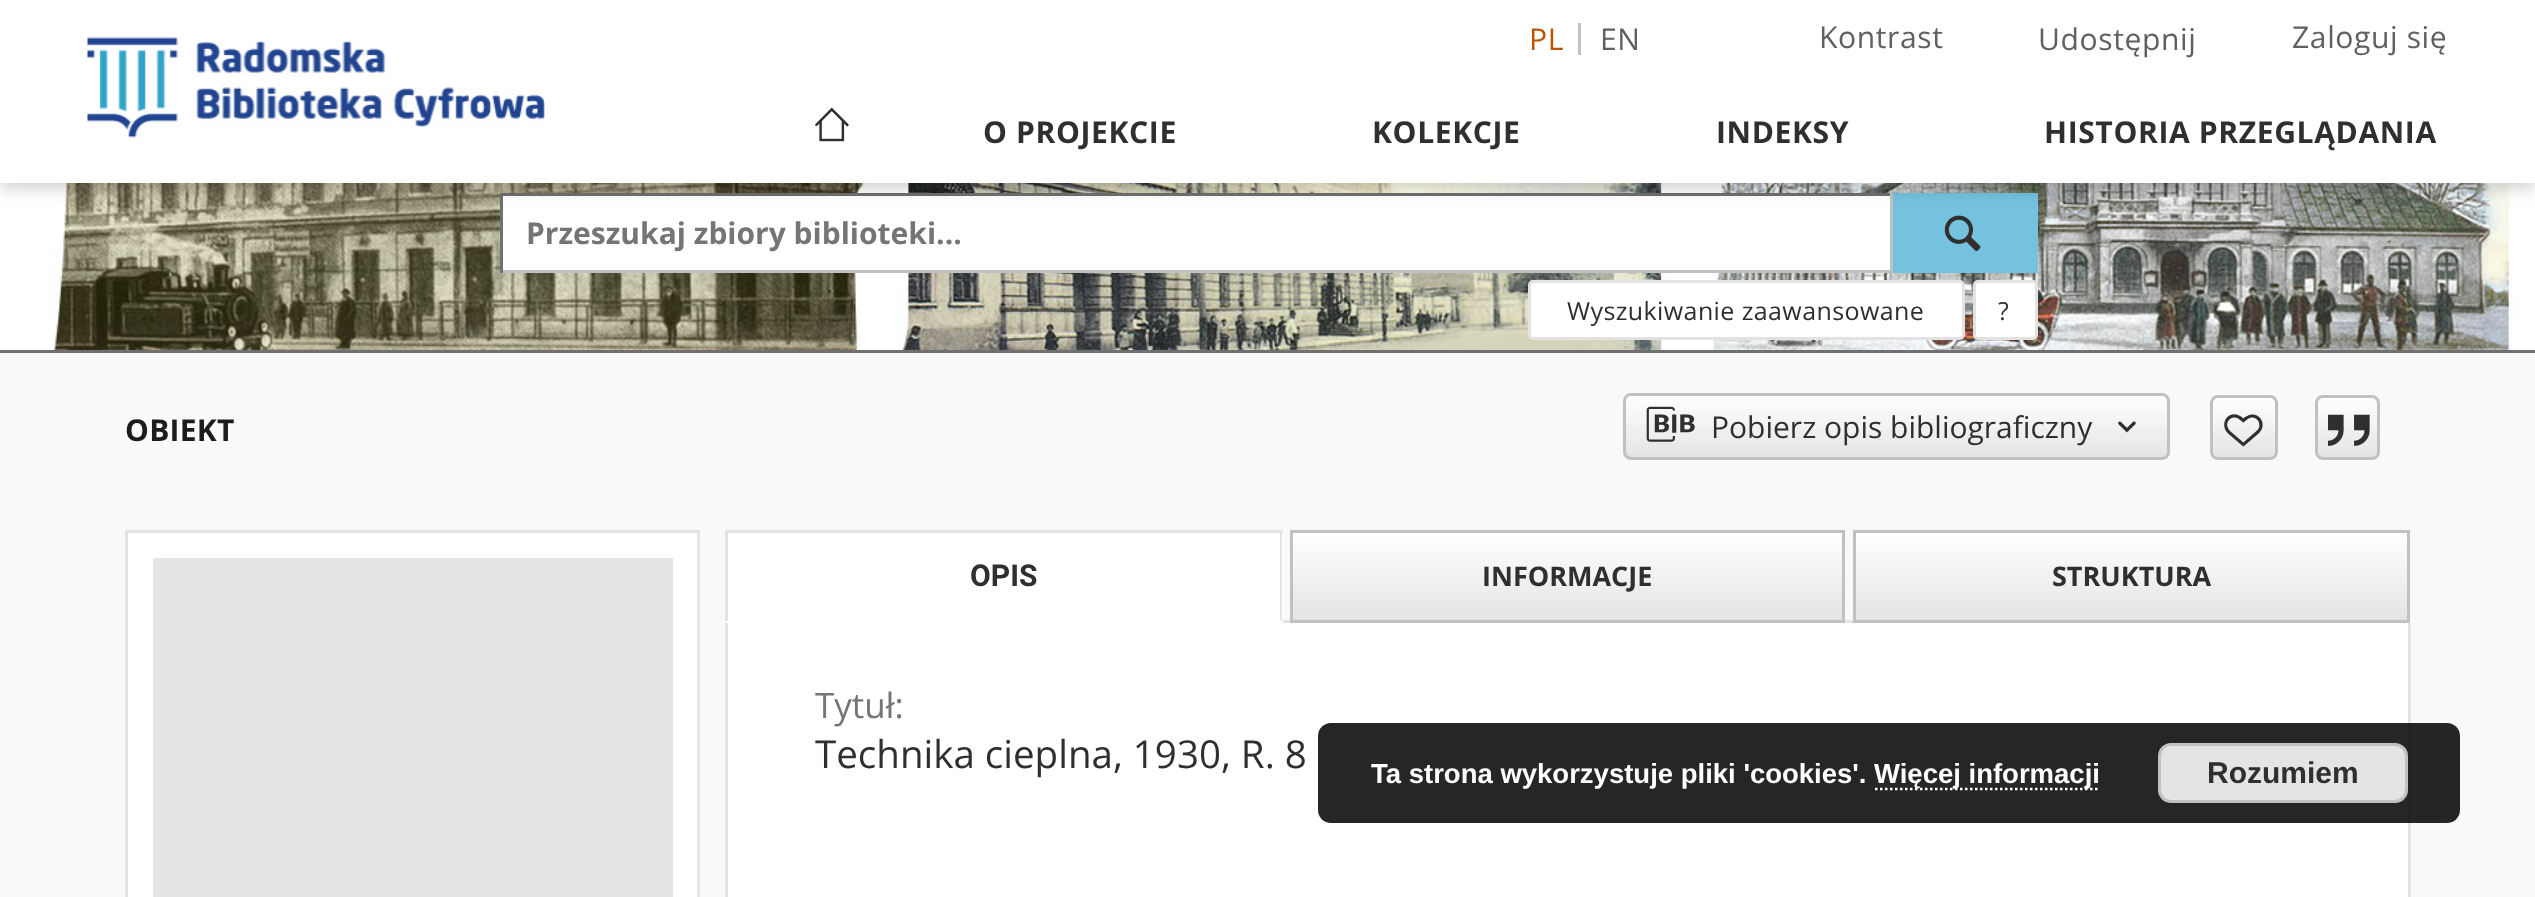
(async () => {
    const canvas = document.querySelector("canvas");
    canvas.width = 2535;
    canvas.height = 897;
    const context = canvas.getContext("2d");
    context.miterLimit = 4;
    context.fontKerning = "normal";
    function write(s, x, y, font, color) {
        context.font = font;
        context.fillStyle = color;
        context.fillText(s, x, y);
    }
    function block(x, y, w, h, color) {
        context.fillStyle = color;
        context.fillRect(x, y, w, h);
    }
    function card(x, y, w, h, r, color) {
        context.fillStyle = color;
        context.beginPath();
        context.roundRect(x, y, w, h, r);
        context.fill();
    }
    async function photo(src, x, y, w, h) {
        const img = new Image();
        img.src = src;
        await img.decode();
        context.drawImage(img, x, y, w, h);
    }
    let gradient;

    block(0, 0, 2535, 897, "rgb(249, 249, 249)");
    await photo("media/3.png", 0, 183, 2535, 167);
    block(503, 196, 1387, 74, "rgb(255, 255, 255)");
    block(500, 193, 1393, 3, "rgb(112, 112, 112)");
    block(1890, 193, 3, 80, "rgb(193, 193, 193)");
    block(500, 270, 1393, 3, "rgb(193, 193, 193)");
    block(500, 193, 3, 80, "rgb(112, 112, 112)");
    block(1893, 193, 145, 80, "rgb(117, 194, 222)");
    await photo("media/4.png", 1944, 215, 37, 37);
    context.fillStyle = "rgba(0, 0, 0, 0.08)";
    context.filter = "blur(12.5px)";
    context.beginPath();
    context.rect(0, 3, 2535, 182);
    context.fill();
    context.filter = "none";
    context.fillStyle = "rgba(0, 0, 0, 0.06)";
    context.filter = "blur(6px)";
    context.beginPath();
    context.rect(0, 10, 2535, 183);
    context.fill();
    context.filter = "none";
    context.filter = "blur(5px)";
    context.beginPath();
    context.rect(3, 8, 2530, 177);
    context.fill();
    context.filter = "none";
    block(0, 0, 2535, 183, "rgb(255, 255, 255)");
    block(1578, 23, 3, 32, "rgb(193, 193, 193)");
    context.letterSpacing = "0.6px";
    write("PL", 1529, 50, "30.1px Open Sans", "rgb(188, 83, 0)");
    write("EN", 1600, 50, "30.1px Open Sans", "rgb(96, 96, 96)");
    write("Kontrast", 1819, 48, "30.1px Open Sans", "rgb(96, 96, 96)");
    write("Udostępnij", 2038, 50, "30.1px Open Sans", "rgb(96, 96, 96)");
    write("Zaloguj się", 2292, 48, "30.1px Open Sans", "rgb(96, 96, 96)");
    await photo("media/1.png", 87, 37, 458, 101);
    await photo("media/2.png", 815, 107, 34, 35);
    write("O PROJEKCIE", 983, 143, "bold 30.1px Open Sans", "rgb(48, 47, 46)");
    write("KOLEKCJE", 1372, 143, "bold 30.1px Open Sans", "rgb(48, 47, 46)");
    write("INDEKSY", 1716, 143, "bold 30.1px Open Sans", "rgb(48, 47, 46)");
    write("HISTORIA PRZEGLĄDANIA", 2044, 143, "bold 30.1px Open Sans", "rgb(48, 47, 46)");
    block(0, 350, 2535, 3, "rgb(112, 112, 112)");
    context.letterSpacing = "0px";
    write("Przeszukaj zbiory biblioteki...", 526, 244, "bold 30px Open Sans", "rgb(117, 117, 117)");
    context.fillStyle = "rgb(255, 255, 255)";
    context.beginPath();
    context.roundRect(1529.5, 281.5, 434, 57, 3.5);
    context.fill();
    context.strokeStyle = "rgb(226, 226, 226)";
    context.lineWidth = 3;
    context.stroke();
    context.letterSpacing = "0.4px";
    write("Wyszukiwanie zaawansowane", 1567, 320, "25px Open Sans", "rgb(48, 47, 46)");
    context.fillStyle = "rgb(255, 255, 255)";
    context.beginPath();
    context.roundRect(1974.5, 281.5, 62, 57, 3.5);
    context.fill();
    context.stroke();
    context.letterSpacing = "0px";
    write("?", 1998, 320, "25px Open Sans", "rgb(48, 47, 46)");
    context.letterSpacing = "0.25px";
    write("OBIEKT", 125, 441, "bold 30px Open Sans", "rgb(28, 28, 28)");
    context.save();
    context.beginPath();
    context.roundRect(1623, 393, 547, 67, 8);
    context.clip();
    gradient = context.createLinearGradient(1896, 395, 1896, 458);
    gradient.addColorStop(0, "rgb(255, 255, 255)");
    gradient.addColorStop(1, "rgb(228, 228, 228)");
    context.fillStyle = gradient;
    context.fillRect(1623, 395, 547, 63);
    context.restore();
    context.beginPath();
    context.roundRect(1624.5, 394.5, 544, 64, 6.5);
    context.strokeStyle = "rgb(193, 193, 193)";
    context.stroke();
    await photo("media/5.png", 1646, 406, 49, 36);
    context.letterSpacing = "0px";
    write("Pobierz opis bibliograficzny", 1711, 438, "30px Open Sans", "rgb(48, 47, 46)");
    await photo("media/6.png", 2118, 421, 18, 12);
    context.save();
    context.beginPath();
    context.roundRect(2210, 395, 68, 65, 8);
    context.clip();
    gradient = context.createLinearGradient(2244, 398, 2244, 458);
    gradient.addColorStop(0, "rgb(255, 255, 255)");
    gradient.addColorStop(1, "rgb(228, 228, 228)");
    context.fillStyle = gradient;
    context.fillRect(2210, 398, 68, 60);
    context.restore();
    context.beginPath();
    context.roundRect(2211.5, 396.5, 65, 62, 6.5);
    context.stroke();
    await photo("media/7.png", 2224, 414, 39, 33);
    context.save();
    context.beginPath();
    context.roundRect(2315, 395, 65, 65, 8);
    context.clip();
    gradient = context.createLinearGradient(2348, 398, 2348, 458);
    gradient.addColorStop(0, "rgb(255, 255, 255)");
    gradient.addColorStop(1, "rgb(228, 228, 228)");
    context.fillStyle = gradient;
    context.fillRect(2315, 398, 65, 60);
    context.restore();
    context.beginPath();
    context.roundRect(2316.5, 396.5, 62, 62, 6.5);
    context.stroke();
    await photo("media/8.png", 2328, 414, 42, 32);
    context.fillStyle = "rgb(255, 255, 255)";
    context.beginPath();
    context.rect(126.5, 531.5, 572, 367);
    context.fill();
    context.strokeStyle = "rgb(228, 228, 228)";
    context.stroke();
    block(153, 558, 520, 339, "rgb(228, 228, 228)");
    block(1283, 620, 570, 3, "rgb(228, 228, 228)");
    block(725, 533, 558, 90, "rgb(255, 255, 255)");
    block(725, 530, 558, 3, "rgb(228, 228, 228)");
    context.beginPath();
    context.moveTo(1282, 530);
    context.lineTo(1282, 622);
    context.lineTo(1280, 620);
    context.lineTo(1280, 532);
    context.closePath();
    context.fill();
    context.beginPath();
    context.moveTo(725, 622);
    context.lineTo(725, 530);
    context.lineTo(728, 532);
    context.lineTo(728, 620);
    context.closePath();
    context.fill();
    write("OPIS", 970, 586, "bold 30.1px Roboto", "rgb(48, 47, 46)");
    gradient = context.createLinearGradient(1568, 533, 1568, 620);
    gradient.addColorStop(0, "rgb(255, 255, 255)");
    gradient.addColorStop(1, "rgb(228, 228, 228)");
    context.fillStyle = gradient;
    context.fillRect(1293, 533, 549, 87);
    context.strokeStyle = "rgb(193, 193, 193)";
    context.strokeRect(1291.5, 531.5, 552, 90);
    write("INFORMACJE", 1482, 586, "bold 27px Open Sans", "rgb(48, 47, 46)");
    gradient = context.createLinearGradient(2131, 533, 2131, 620);
    gradient.addColorStop(0, "rgb(255, 255, 255)");
    gradient.addColorStop(1, "rgb(228, 228, 228)");
    context.fillStyle = gradient;
    context.fillRect(1856, 533, 551, 87);
    context.strokeRect(1854.5, 531.5, 554, 90);
    write("STRUKTURA", 2052, 586, "bold 27px Open Sans", "rgb(48, 47, 46)");
    block(728, 623, 1680, 274, "rgb(255, 255, 255)");
    block(2408, 623, 3, 274, "rgb(228, 228, 228)");
    block(725, 623, 3, 274, "rgb(228, 228, 228)");
    write("Tytuł:", 815, 718, "35px Open Sans", "rgb(117, 117, 117)");
    write("Technika cieplna, 1930, R. 8", 815, 768, "38.5px Open Sans", "rgb(48, 47, 46)");
    card(1318, 723, 1142, 100, 13, "rgba(0, 0, 0, 0.85)");
    write("Ta strona wykorzystuje pliki 'cookies'.", 1371, 783, "bold 27.5px Liberation Sans", "rgb(255, 255, 255)");
    context.beginPath();
    context.moveTo(1875, 789);
    context.lineTo(2100, 789);
    context.strokeStyle = "rgb(255, 255, 255)";
    context.lineWidth = 2.5;
    context.setLineDash([2.5, 2.5]);
    context.stroke();
    write("Więcej informacji", 1874, 783, "bold 27.5px Liberation Sans", "rgb(255, 255, 255)");
    context.fillStyle = "rgb(228, 228, 228)";
    context.beginPath();
    context.roundRect(2159.5, 744.5, 247, 57, 11.5);
    context.fill();
    context.strokeStyle = "rgb(193, 193, 193)";
    context.lineWidth = 3;
    context.setLineDash([]);
    context.stroke();
    write("Rozumiem", 2207, 783, "bold 30px Liberation Sans", "rgb(48, 47, 46)");
})();
